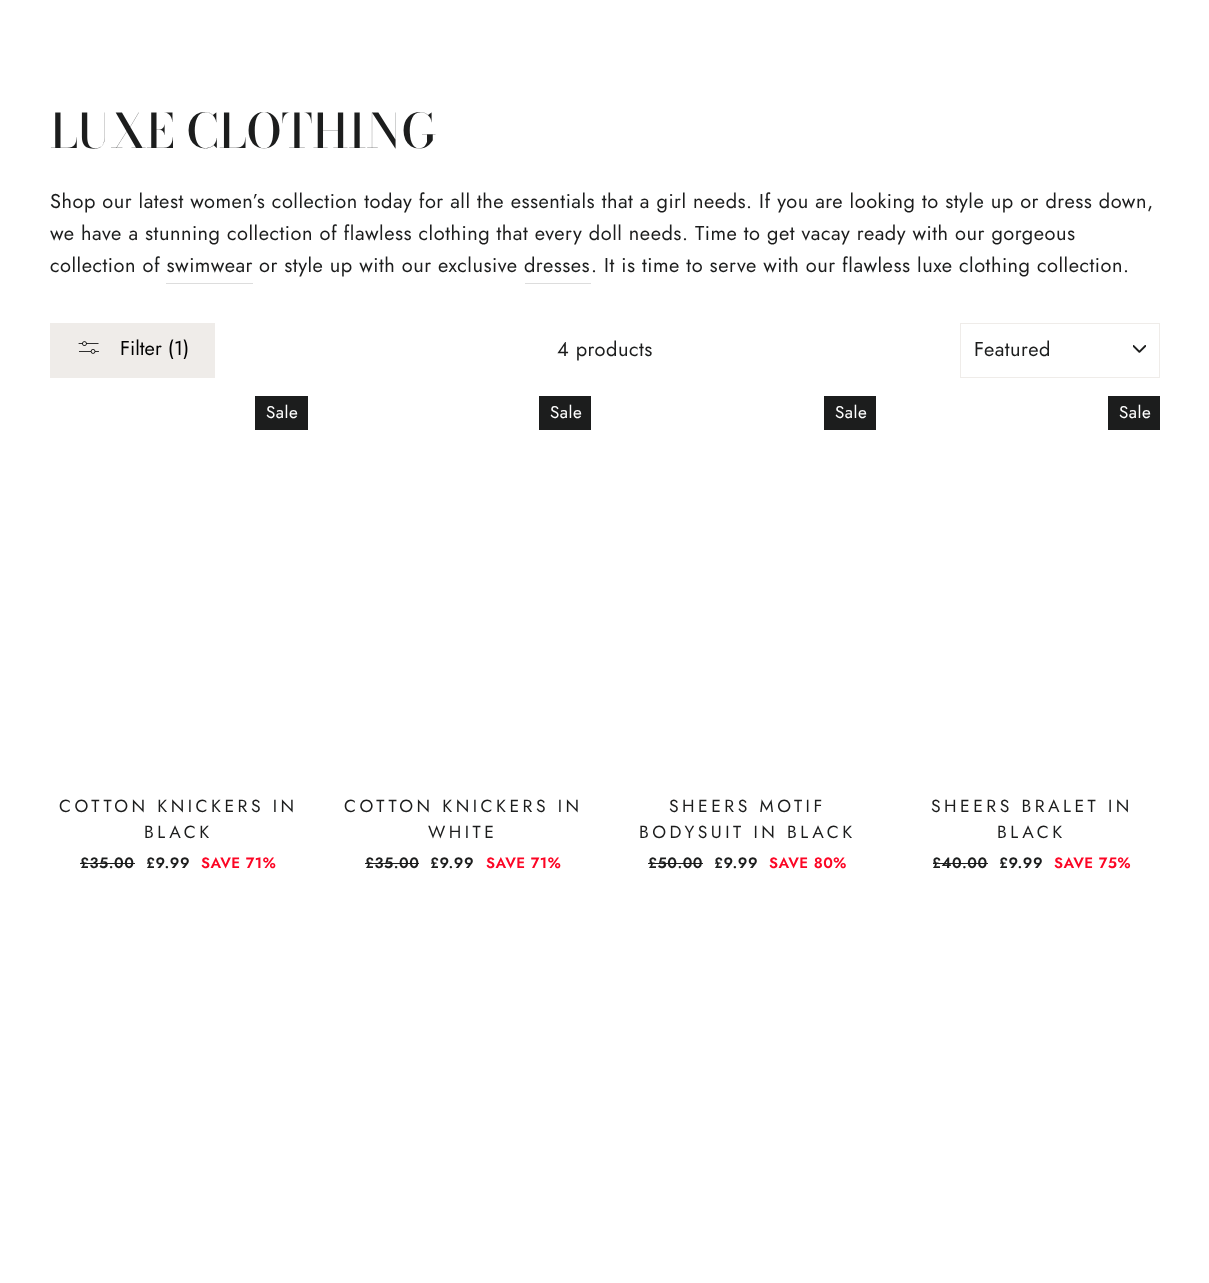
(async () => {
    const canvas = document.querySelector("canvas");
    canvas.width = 1209;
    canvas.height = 1283;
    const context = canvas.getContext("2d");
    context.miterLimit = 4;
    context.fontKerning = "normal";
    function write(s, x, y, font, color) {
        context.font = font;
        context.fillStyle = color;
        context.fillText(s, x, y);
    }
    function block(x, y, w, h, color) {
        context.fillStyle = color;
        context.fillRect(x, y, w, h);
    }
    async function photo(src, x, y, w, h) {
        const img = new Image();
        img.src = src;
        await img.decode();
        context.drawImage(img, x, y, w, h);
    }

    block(0, 0, 1209, 1283, "rgb(255, 255, 255)");
    write("LUXE CLOTHING", 50, 148, "500 47.5px Bodoni Moda", "rgb(28, 29, 29)");
    context.letterSpacing = "0.5px";
    write("Shop our latest women’s collection today for all the essentials that a girl needs. If you are looking to style up or dress down,", 50, 208, "20px Jost", "rgb(28, 29, 29)");
    write("we have a stunning collection of flawless clothing that every doll needs. Time to get vacay ready with our gorgeous", 50, 240, "20px Jost", "rgb(28, 29, 29)");
    write("collection of swimwear", 50, 272, "20px Jost", "rgb(28, 29, 29)");
    write("or style up with our exclusive dresses", 259, 272, "20px Jost", "rgb(28, 29, 29)");
    write(". It is time to serve with our flawless luxe clothing collection.", 591, 272, "20px Jost", "rgb(28, 29, 29)");
    block(166, 283, 87, 1, "rgb(221, 221, 221)");
    block(525, 283, 66, 1, "rgb(221, 221, 221)");
    block(50, 323, 165, 55, "rgb(239, 236, 233)");
    await photo("media/1.png", 78, 341, 21, 13);
    context.letterSpacing = "0px";
    write("Filter (1)", 120, 355, "20px Jost", "rgb(0, 0, 0)");
    context.letterSpacing = "0.5px";
    write("4 products", 557, 356, "20px Jost", "rgb(28, 29, 29)");
    await photo("media/2.png", 1133, 345, 13, 8);
    context.strokeStyle = "rgb(239, 236, 233)";
    context.strokeRect(960.5, 323.5, 199, 54);
    write("Featured", 974, 356, "20px Jost", "rgb(28, 29, 29)");
    block(255, 396, 53, 34, "rgb(28, 29, 29)");
    write("Sale", 266, 418, "17px Jost", "rgb(255, 255, 255)");
    context.letterSpacing = "3.5px";
    write("COTTON KNICKERS IN", 59, 812, "17.5px Jost", "rgb(28, 29, 29)");
    write("BLACK", 144, 838, "17.5px Jost", "rgb(28, 29, 29)");
    context.letterSpacing = "0.5px";
    write("£35.00", 80, 868, "600 15px Jost", "rgb(28, 29, 29)");
    block(80, 863, 55, 1, "rgb(28, 29, 29)");
    write("£9.99", 146, 868, "600 15px Jost", "rgb(28, 29, 29)");
    write("SAVE 71%", 201, 868, "600 15px Jost", "rgb(252, 5, 36)");
    block(539, 396, 52, 34, "rgb(28, 29, 29)");
    write("Sale", 550, 418, "17px Jost", "rgb(255, 255, 255)");
    context.letterSpacing = "3.5px";
    write("COTTON KNICKERS IN", 344, 812, "17.5px Jost", "rgb(28, 29, 29)");
    write("WHITE", 428, 838, "17.5px Jost", "rgb(28, 29, 29)");
    context.letterSpacing = "0.5px";
    write("£35.00", 365, 868, "600 15px Jost", "rgb(28, 29, 29)");
    block(365, 863, 54, 1, "rgb(28, 29, 29)");
    write("£9.99", 430, 868, "600 15px Jost", "rgb(28, 29, 29)");
    write("SAVE 71%", 486, 868, "600 15px Jost", "rgb(252, 5, 36)");
    block(824, 396, 52, 34, "rgb(28, 29, 29)");
    write("Sale", 835, 418, "17px Jost", "rgb(255, 255, 255)");
    context.letterSpacing = "3.5px";
    write("SHEERS MOTIF", 669, 812, "17.5px Jost", "rgb(28, 29, 29)");
    write("BODYSUIT IN BLACK", 639, 838, "17.5px Jost", "rgb(28, 29, 29)");
    context.letterSpacing = "0.5px";
    write("£50.00", 648, 868, "600 15px Jost", "rgb(28, 29, 29)");
    block(648, 863, 55, 1, "rgb(28, 29, 29)");
    write("£9.99", 714, 868, "600 15px Jost", "rgb(28, 29, 29)");
    write("SAVE 80%", 769, 868, "600 15px Jost", "rgb(252, 5, 36)");
    block(1108, 396, 52, 34, "rgb(28, 29, 29)");
    write("Sale", 1119, 418, "17px Jost", "rgb(255, 255, 255)");
    context.letterSpacing = "3.5px";
    write("SHEERS BRALET IN", 931, 812, "17.5px Jost", "rgb(28, 29, 29)");
    write("BLACK", 997, 838, "17.5px Jost", "rgb(28, 29, 29)");
    context.letterSpacing = "0.5px";
    write("£40.00", 932, 868, "600 15px Jost", "rgb(28, 29, 29)");
    block(933, 863, 55, 1, "rgb(28, 29, 29)");
    write("£9.99", 999, 868, "600 15px Jost", "rgb(28, 29, 29)");
    write("SAVE 75%", 1054, 868, "600 15px Jost", "rgb(252, 5, 36)");
})();
